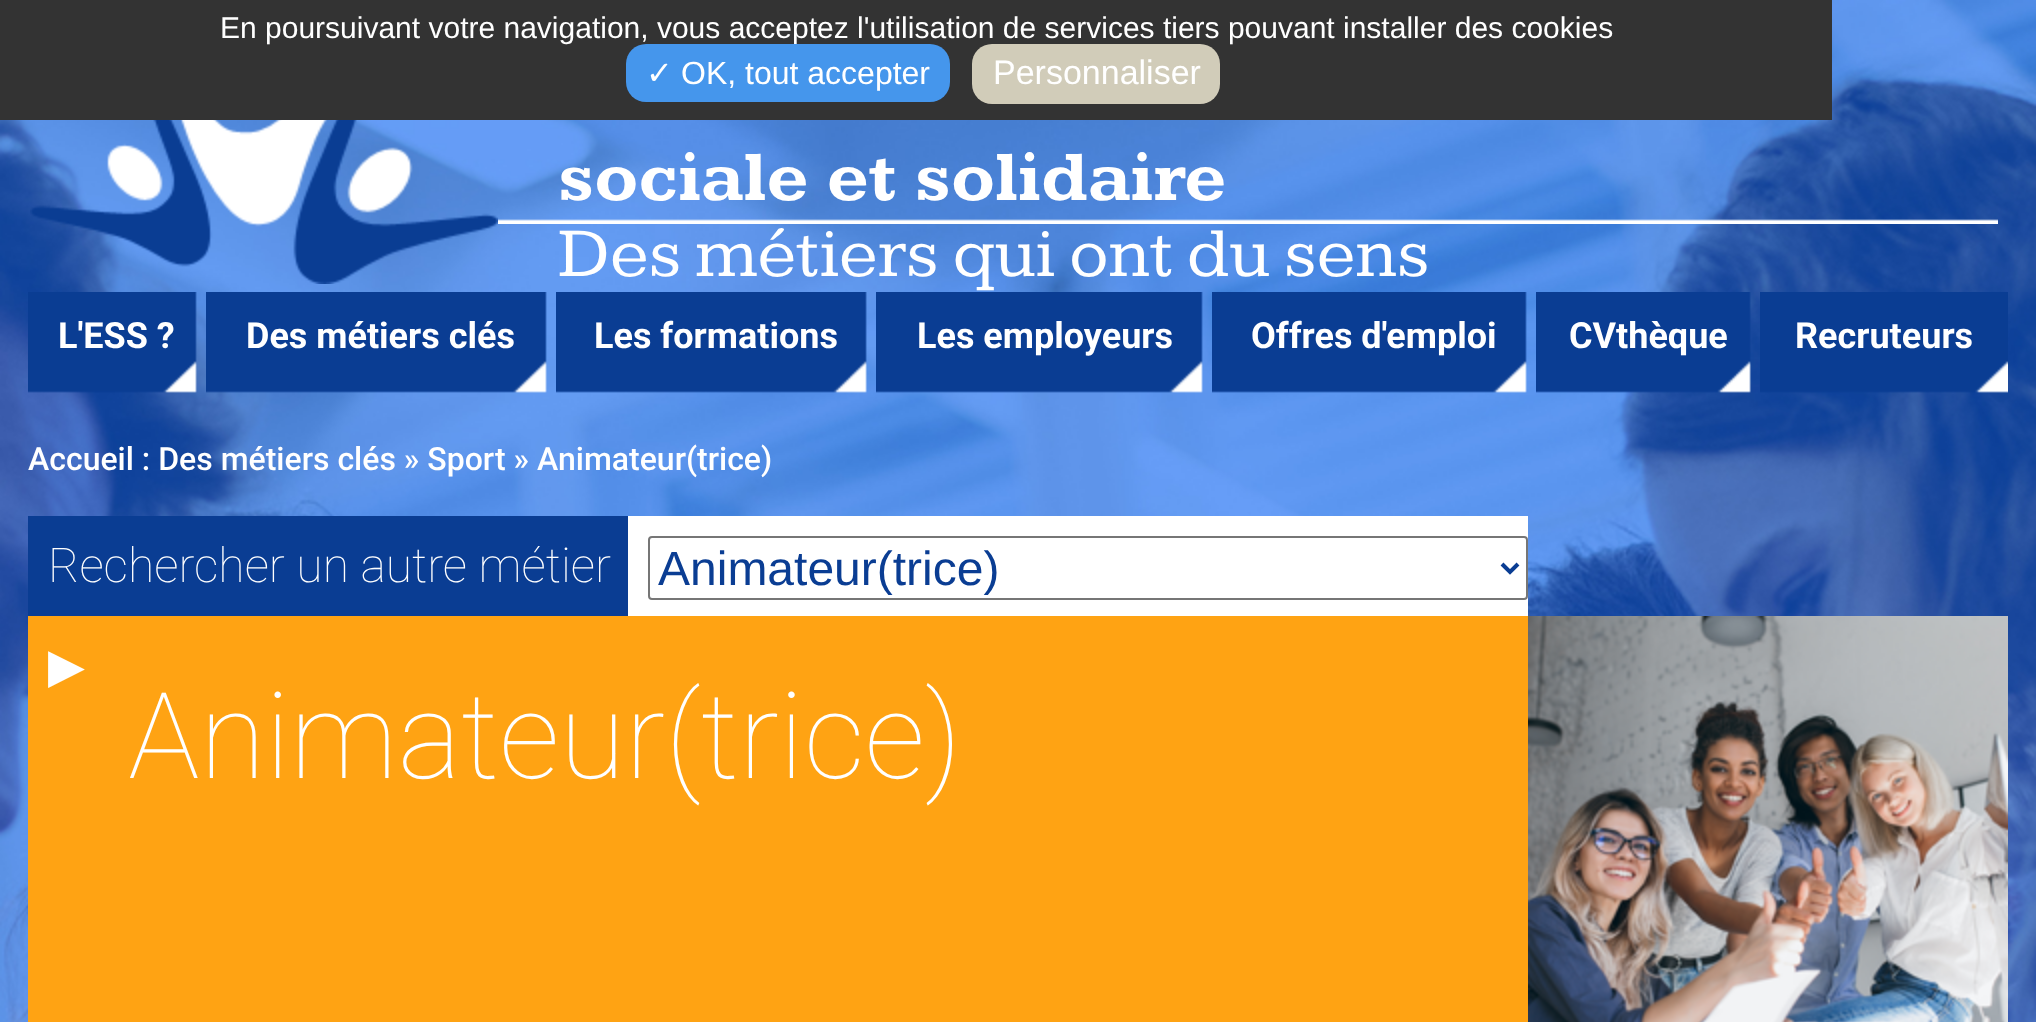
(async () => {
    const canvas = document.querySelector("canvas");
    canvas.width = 2036;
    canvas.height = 1022;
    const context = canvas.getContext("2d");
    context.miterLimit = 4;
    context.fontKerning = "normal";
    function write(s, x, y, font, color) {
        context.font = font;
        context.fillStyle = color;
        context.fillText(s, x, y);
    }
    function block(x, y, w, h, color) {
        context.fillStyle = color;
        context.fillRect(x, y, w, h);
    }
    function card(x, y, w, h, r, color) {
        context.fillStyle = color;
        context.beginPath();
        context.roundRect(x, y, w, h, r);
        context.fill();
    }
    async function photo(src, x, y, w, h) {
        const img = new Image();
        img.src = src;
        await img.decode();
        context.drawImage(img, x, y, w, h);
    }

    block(0, 0, 2036, 1022, "rgb(255, 255, 255)");
    await photo("media/1.png", 0, 0, 2036, 1022);
    block(0, 0, 1832, 120, "rgb(51, 51, 51)");
    write("En poursuivant votre navigation, vous acceptez l'utilisation de services tiers pouvant installer des cookies", 220, 38, "30px Liberation Sans", "rgb(255, 255, 255)");
    card(626, 44, 324, 58, 20, "rgb(69, 150, 236)");
    write("✓", 646, 84, "32px DejaVu Sans", "rgb(255, 255, 255)");
    write("OK, tout accepter", 681, 84, "32px Liberation Sans", "rgb(255, 255, 255)");
    card(972, 44, 248, 60, 20, "rgb(209, 204, 185)");
    write("Personnaliser", 993, 84, "34px Liberation Sans", "rgb(255, 255, 255)");
    await photo("media/2.png", 30, 120, 468, 164);
    await photo("media/3.png", 498, 219, 1500, 5);
    write("sociale et solidaire", 558, 200, "bold 72px Kameron", "rgb(255, 255, 255)");
    write("Des métiers qui ont du sens", 558, 276, "72px Kameron", "rgb(255, 255, 255)");
    await photo("media/4.png", 28, 292, 169, 101);
    write("L'ESS ?", 58, 348, "bold 36px Roboto", "rgb(255, 255, 255)");
    await photo("media/5.png", 206, 292, 341, 101);
    write("Des métiers clés", 246, 348, "bold 36px Roboto", "rgb(255, 255, 255)");
    await photo("media/6.png", 556, 292, 311, 101);
    write("Les formations", 594, 348, "bold 36px Roboto", "rgb(255, 255, 255)");
    await photo("media/7.png", 876, 292, 327, 101);
    write("Les employeurs", 917, 348, "bold 36px Roboto", "rgb(255, 255, 255)");
    await photo("media/8.png", 1212, 292, 315, 101);
    write("Offres d'emploi", 1251, 348, "bold 36px Roboto", "rgb(255, 255, 255)");
    await photo("media/9.png", 1536, 292, 215, 101);
    write("CVthèque", 1569, 348, "bold 36px Roboto", "rgb(255, 255, 255)");
    await photo("media/10.png", 1760, 292, 248, 101);
    write("Recruteurs", 1795, 348, "bold 36px Roboto", "rgb(255, 255, 255)");
    write("Accueil : Des métiers clés » Sport » Animateur(trice)", 28, 470, "500 32px Roboto", "rgb(255, 255, 255)");
    block(28, 516, 600, 100, "rgb(10, 61, 147)");
    write("Rechercher un autre métier", 48, 582, "100 48px Roboto", "rgb(255, 255, 255)");
    block(28, 616, 1500, 406, "rgb(255, 163, 19)");
    write("▶", 48, 682, "48px DejaVu Sans", "rgb(255, 255, 255)");
    block(628, 516, 900, 100, "rgb(255, 255, 255)");
    context.beginPath();
    context.roundRect(649, 537, 878, 62, 3);
    context.strokeStyle = "rgb(118, 118, 118)";
    context.lineWidth = 2;
    context.stroke();
    context.beginPath();
    context.moveTo(1502, 564);
    context.lineTo(1510, 572);
    context.lineTo(1518, 564);
    context.strokeStyle = "rgb(10, 61, 147)";
    context.lineWidth = 4;
    context.stroke();
    write("Animateur(trice)", 658, 585, "48px Liberation Sans", "rgb(10, 61, 147)");
    write("Animateur(trice)", 128, 778, "100 120px Roboto", "rgb(255, 255, 255)");
    await photo("media/11.png", 1528, 616, 480, 406);
})();
